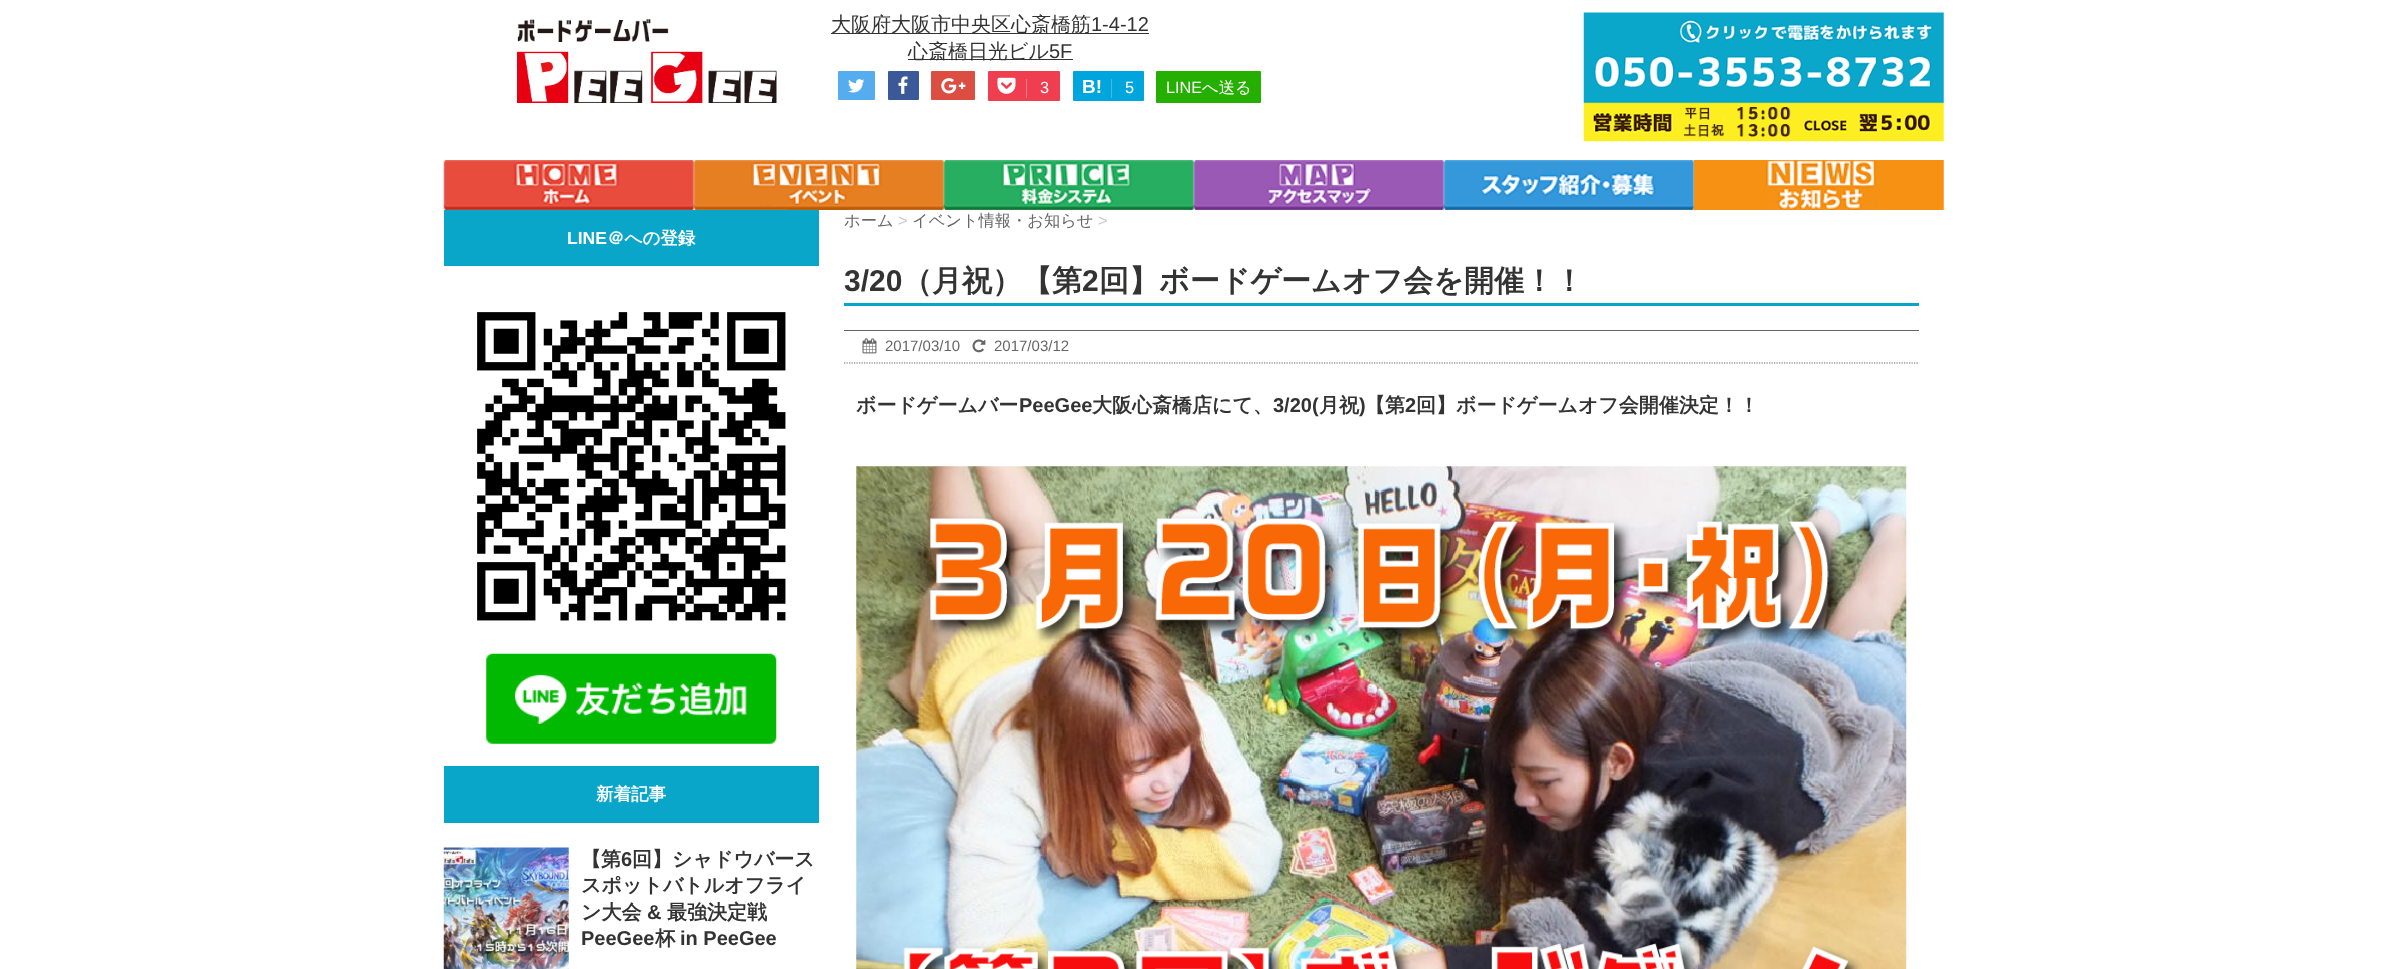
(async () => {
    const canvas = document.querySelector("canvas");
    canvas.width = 2387;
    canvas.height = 969;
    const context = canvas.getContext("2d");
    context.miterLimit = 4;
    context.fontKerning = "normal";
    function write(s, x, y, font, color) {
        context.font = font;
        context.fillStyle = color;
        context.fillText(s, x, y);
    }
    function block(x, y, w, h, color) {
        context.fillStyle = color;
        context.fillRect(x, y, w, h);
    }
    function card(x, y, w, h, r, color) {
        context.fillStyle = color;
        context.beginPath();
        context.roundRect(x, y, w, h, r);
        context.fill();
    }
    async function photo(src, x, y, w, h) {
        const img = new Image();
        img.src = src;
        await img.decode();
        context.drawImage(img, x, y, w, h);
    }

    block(0, 0, 2387, 969, "rgb(255, 255, 255)");
    await photo("media/1.png", 517, 19, 260, 84);
    block(831, 33, 318, 1, "rgb(51, 51, 51)");
    write("大阪府大阪市中央区心斎橋筋", 831, 31, "500 20px WenQuanYi Zen Hei", "rgb(51, 51, 51)");
    write("1-4-12", 1091, 31, "20px Liberation Sans", "rgb(51, 51, 51)");
    block(908, 59, 165, 1, "rgb(51, 51, 51)");
    write("心斎橋日光ビル", 908, 58, "500 20px WenQuanYi Zen Hei", "rgb(51, 51, 51)");
    write("5F", 1049, 58, "20px Liberation Sans", "rgb(51, 51, 51)");
    await photo("media/2.png", 1583, 12, 361, 130);
    card(838, 71, 37, 29, 1, "rgb(85, 172, 238)");
    await photo("media/3.png", 848, 79, 17, 14);
    card(888, 71, 31, 29, 1, "rgb(59, 89, 152)");
    await photo("media/4.png", 898, 76, 10, 18);
    card(931, 71, 44, 29, 1, "rgb(220, 78, 65)");
    await photo("media/5.png", 941, 78, 25, 16);
    card(988, 71, 72, 30, 1, "rgb(240, 62, 81)");
    await photo("media/6.png", 997, 77, 19, 17);
    write("3", 1040, 93, "16.25px Liberation Sans", "rgb(255, 255, 255)");
    block(1026, 79, 1, 19, "rgb(242, 121, 133)");
    card(1073, 71, 71, 30, 1, "rgb(0, 165, 222)");
    write("B!", 1082, 93, "bold 19px Liberation Sans", "rgb(255, 255, 255)");
    write("5", 1125, 93, "16.25px Liberation Sans", "rgb(255, 255, 255)");
    block(1111, 79, 1, 19, "rgb(72, 182, 219)");
    card(1156, 71, 105, 32, 1, "rgb(37, 175, 0)");
    write("LINE", 1166, 93, "16.25px Liberation Sans", "rgb(255, 255, 255)");
    write("へ送る", 1202, 93, "500 16.25px WenQuanYi Zen Hei", "rgb(255, 255, 255)");
    await photo("media/7.png", 443, 160, 251, 50);
    await photo("media/8.png", 693, 160, 251, 50);
    await photo("media/9.png", 943, 160, 251, 50);
    await photo("media/10.png", 1193, 160, 251, 50);
    await photo("media/11.png", 1443, 160, 251, 50);
    await photo("media/12.png", 1693, 160, 251, 50);
    block(444, 210, 375, 56, "rgb(10, 166, 202)");
    write("LINE", 567, 244, "bold 17.5px Liberation Sans", "rgb(255, 255, 255)");
    write("＠への登録", 607, 244, "bold 17.5px WenQuanYi Zen Hei", "rgb(255, 255, 255)");
    await photo("media/13.png", 477, 312, 309, 309);
    await photo("media/14.png", 486, 653, 291, 91);
    block(444, 766, 375, 57, "rgb(10, 166, 202)");
    write("新着記事", 596, 800, "bold 17.5px WenQuanYi Zen Hei", "rgb(255, 255, 255)");
    await photo("media/15.png", 443, 847, 126, 122);
    write("【第", 581, 866, "bold 20px WenQuanYi Zen Hei", "rgb(51, 51, 51)");
    write("6", 621, 866, "bold 20px Liberation Sans", "rgb(51, 51, 51)");
    write("回】シャドウバース", 632, 866, "bold 20px WenQuanYi Zen Hei", "rgb(51, 51, 51)");
    write("スポットバトルオフライ", 581, 892, "bold 20px WenQuanYi Zen Hei", "rgb(51, 51, 51)");
    write("ン大会", 581, 919, "bold 20px WenQuanYi Zen Hei", "rgb(51, 51, 51)");
    write("&", 647, 919, "bold 20px Liberation Sans", "rgb(51, 51, 51)");
    write("最強決定戦", 667, 919, "bold 20px WenQuanYi Zen Hei", "rgb(51, 51, 51)");
    write("PeeGee", 581, 945, "bold 20px Liberation Sans", "rgb(51, 51, 51)");
    write("杯", 655, 945, "bold 20px WenQuanYi Zen Hei", "rgb(51, 51, 51)");
    write("in PeeGee", 680, 945, "bold 20px Liberation Sans", "rgb(51, 51, 51)");
    write("ホーム", 844, 226, "500 16.25px WenQuanYi Zen Hei", "rgb(102, 102, 102)");
    write(">", 898, 226, "16.25px Liberation Sans", "rgb(204, 204, 204)");
    write("イベント情報・お知らせ", 912, 226, "500 16.25px WenQuanYi Zen Hei", "rgb(102, 102, 102)");
    write(">", 1098, 226, "16.25px Liberation Sans", "rgb(204, 204, 204)");
    block(844, 303, 1075, 3, "rgb(10, 166, 202)");
    write("3/20", 844, 291, "bold 30px Liberation Sans", "rgb(51, 51, 51)");
    write("（月祝）【第", 902, 291, "bold 30px WenQuanYi Zen Hei", "rgb(51, 51, 51)");
    write("2", 1082, 291, "bold 30px Liberation Sans", "rgb(51, 51, 51)");
    write("回】ボードゲームオフ会を開催！！", 1099, 291, "bold 30px WenQuanYi Zen Hei", "rgb(51, 51, 51)");
    block(844, 330, 1075, 1, "rgb(102, 102, 102)");
    context.beginPath();
    context.moveTo(844, 363);
    context.lineTo(1919, 363);
    context.strokeStyle = "rgb(102, 102, 102)";
    context.lineWidth = 1.2;
    context.setLineDash([1.25, 1.25]);
    context.stroke();
    await photo("media/16.png", 862, 338, 15, 16);
    write("2017/03/10", 885, 351, "15px Liberation Sans", "rgb(102, 102, 102)");
    await photo("media/17.png", 972, 339, 14, 14);
    write("2017/03/12", 994, 351, "15px Liberation Sans", "rgb(102, 102, 102)");
    write("ボードゲームバー", 856, 412, "bold 20px WenQuanYi Zen Hei", "rgb(51, 51, 51)");
    write("PeeGee", 1019, 412, "bold 20px Liberation Sans", "rgb(51, 51, 51)");
    write("大阪心斎橋店にて、", 1092, 412, "bold 20px WenQuanYi Zen Hei", "rgb(51, 51, 51)");
    write("3/20(", 1273, 412, "bold 20px Liberation Sans", "rgb(51, 51, 51)");
    write("月祝", 1319, 412, "bold 20px WenQuanYi Zen Hei", "rgb(51, 51, 51)");
    write(")", 1359, 412, "bold 20px Liberation Sans", "rgb(51, 51, 51)");
    write("【第", 1365, 412, "bold 20px WenQuanYi Zen Hei", "rgb(51, 51, 51)");
    write("2", 1405, 412, "bold 20px Liberation Sans", "rgb(51, 51, 51)");
    write("回】ボードゲームオフ会開催決定！！", 1416, 412, "bold 20px WenQuanYi Zen Hei", "rgb(51, 51, 51)");
    await photo("media/18.png", 856, 466, 1051, 503);
})();
